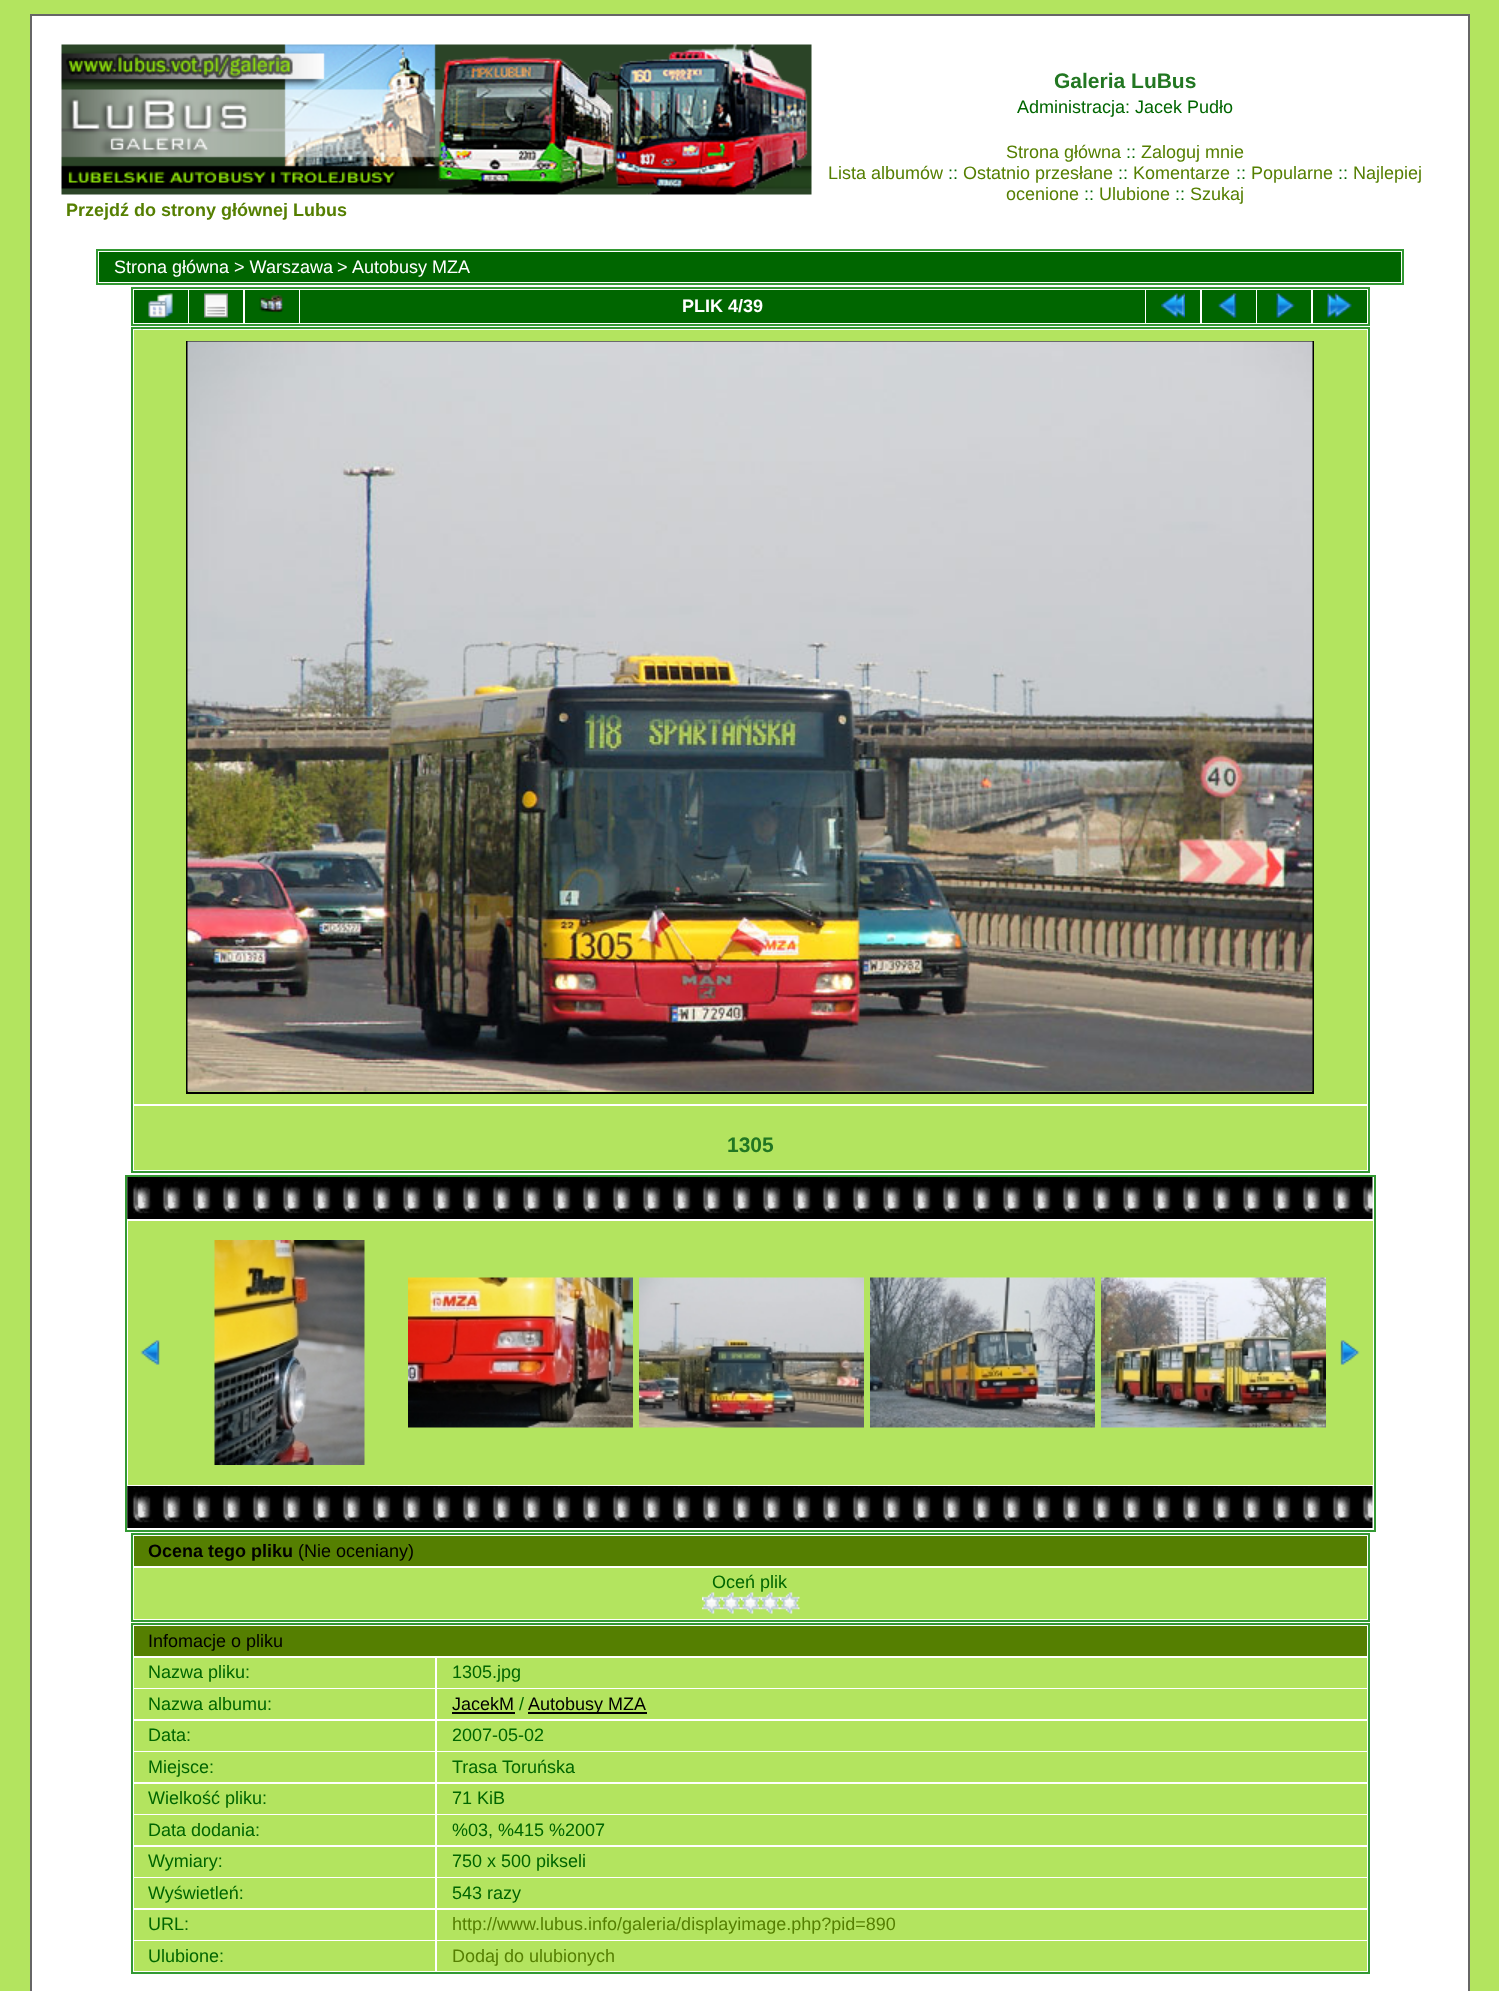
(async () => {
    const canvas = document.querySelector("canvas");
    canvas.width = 1499;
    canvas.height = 1991;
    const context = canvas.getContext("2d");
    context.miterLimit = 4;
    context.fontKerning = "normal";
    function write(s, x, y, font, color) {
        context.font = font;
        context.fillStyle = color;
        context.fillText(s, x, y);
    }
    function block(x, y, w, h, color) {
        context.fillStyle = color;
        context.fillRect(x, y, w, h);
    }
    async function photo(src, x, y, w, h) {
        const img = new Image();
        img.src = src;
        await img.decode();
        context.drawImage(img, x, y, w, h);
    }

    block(0, 0, 1499, 1991, "rgb(179, 228, 95)");
    context.fillStyle = "rgb(255, 255, 255)";
    context.beginPath();
    context.rect(31, 15, 1438, 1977);
    context.fill();
    context.strokeStyle = "rgb(102, 102, 102)";
    context.lineWidth = 2;
    context.stroke();
    write("Galeria LuBus", 1054, 88, "bold 21px Liberation Sans", "rgb(34, 119, 34)");
    write("Administracja: Jacek Pudło", 1017, 113, "18px Liberation Sans", "rgb(0, 102, 0)");
    write("Strona główna", 1006, 158, "18px Liberation Sans", "rgb(85, 127, 1)");
    write("::", 1126, 158, "18px Liberation Sans", "rgb(0, 102, 0)");
    write("Zaloguj mnie", 1141, 158, "18px Liberation Sans", "rgb(85, 127, 1)");
    write("Lista albumów", 828, 179, "18px Liberation Sans", "rgb(85, 127, 1)");
    write("::", 948, 179, "18px Liberation Sans", "rgb(0, 102, 0)");
    write("Ostatnio przesłane", 963, 179, "18px Liberation Sans", "rgb(85, 127, 1)");
    write("::", 1118, 179, "18px Liberation Sans", "rgb(0, 102, 0)");
    write("Komentarze", 1133, 179, "18px Liberation Sans", "rgb(85, 127, 1)");
    write("::", 1236, 179, "18px Liberation Sans", "rgb(0, 102, 0)");
    write("Popularne", 1251, 179, "18px Liberation Sans", "rgb(85, 127, 1)");
    write("::", 1338, 179, "18px Liberation Sans", "rgb(0, 102, 0)");
    write("Najlepiej", 1353, 179, "18px Liberation Sans", "rgb(85, 127, 1)");
    write("ocenione", 1006, 200, "18px Liberation Sans", "rgb(85, 127, 1)");
    write("::", 1084, 200, "18px Liberation Sans", "rgb(0, 102, 0)");
    write("Ulubione", 1099, 200, "18px Liberation Sans", "rgb(85, 127, 1)");
    write("::", 1175, 200, "18px Liberation Sans", "rgb(0, 102, 0)");
    write("Szukaj", 1190, 200, "18px Liberation Sans", "rgb(85, 127, 1)");
    await photo("media/1.png", 61, 44, 751, 151);
    write("Przejdź do strony głównej Lubus", 66, 216, "bold 18px Liberation Sans", "rgb(85, 127, 1)");
    context.strokeStyle = "rgb(51, 153, 51)";
    context.strokeRect(97, 250, 1306, 34);
    block(99, 252, 1302, 30, "rgb(0, 102, 0)");
    write("Strona główna > Warszawa", 114, 273, "18px Liberation Sans", "rgb(255, 255, 255)");
    write(">", 337, 273, "18px Liberation Sans", "rgb(255, 255, 255)");
    write("Autobusy MZA", 352, 273, "18px Liberation Sans", "rgb(255, 255, 255)");
    context.strokeRect(132, 288, 1237, 37);
    block(134, 290, 54, 33, "rgb(0, 102, 0)");
    await photo("media/2.png", 148, 293, 25, 25);
    block(189, 290, 54, 33, "rgb(0, 102, 0)");
    await photo("media/3.png", 204, 293, 24, 25);
    block(245, 290, 54, 33, "rgb(0, 102, 0)");
    await photo("media/4.png", 259, 294, 25, 19);
    block(300, 290, 845, 33, "rgb(0, 102, 0)");
    write("PLIK 4/39", 682, 312, "bold 18px Liberation Sans", "rgb(255, 255, 255)");
    block(1146, 290, 54, 33, "rgb(0, 102, 0)");
    await photo("media/5.png", 1161, 293, 24, 25);
    block(1202, 290, 54, 33, "rgb(0, 102, 0)");
    await photo("media/6.png", 1217, 293, 20, 25);
    block(1257, 290, 54, 33, "rgb(0, 102, 0)");
    await photo("media/7.png", 1276, 293, 19, 25);
    block(1313, 290, 54, 33, "rgb(0, 102, 0)");
    await photo("media/8.png", 1327, 293, 25, 25);
    context.strokeRect(132, 328, 1237, 844);
    block(134, 330, 1233, 774, "rgb(179, 228, 95)");
    context.strokeStyle = "rgb(0, 0, 0)";
    context.strokeRect(187, 342, 1126, 751);
    await photo("media/9.png", 187, 341, 1126, 751);
    block(134, 1106, 1233, 64, "rgb(179, 228, 95)");
    write("1305", 727, 1152, "bold 21px Liberation Sans", "rgb(34, 119, 34)");
    context.strokeStyle = "rgb(51, 153, 51)";
    context.strokeRect(126, 1176, 1249, 355);
    await photo("media/10.png", 127, 1177, 1246, 42);
    await photo("media/11.png", 127, 1177, 11, 42);
    block(128, 1221, 1245, 264, "rgb(179, 228, 95)");
    await photo("media/12.png", 140, 1340, 20, 25);
    await photo("media/13.png", 214, 1240, 151, 225);
    await photo("media/14.png", 408, 1277, 225, 151);
    await photo("media/15.png", 639, 1277, 225, 151);
    await photo("media/16.png", 870, 1277, 225, 151);
    await photo("media/17.png", 1101, 1277, 225, 151);
    await photo("media/18.png", 1340, 1340, 20, 25);
    await photo("media/19.png", 127, 1486, 1246, 42);
    await photo("media/11.png", 127, 1486, 11, 42);
    context.strokeRect(132, 1534, 1237, 87);
    block(134, 1536, 1233, 30, "rgb(85, 127, 1)");
    write("Ocena tego pliku", 148, 1557, "bold 18px Liberation Sans", "rgb(0, 0, 0)");
    write("(Nie oceniany)", 298, 1557, "18px Liberation Sans", "rgb(0, 0, 0)");
    block(134, 1568, 1233, 51, "rgb(179, 228, 95)");
    write("Oceń plik", 712, 1588, "18px Liberation Sans", "rgb(0, 102, 0)");
    await photo("media/20.png", 702, 1592, 20, 22);
    await photo("media/21.png", 721, 1592, 20, 22);
    await photo("media/20.png", 741, 1592, 20, 22);
    await photo("media/22.png", 760, 1592, 20, 22);
    await photo("media/23.png", 780, 1592, 20, 22);
    context.strokeRect(132, 1624, 1237, 349);
    block(134, 1626, 1233, 30, "rgb(85, 127, 1)");
    write("Infomacje o pliku", 148, 1647, "18px Liberation Sans", "rgb(0, 0, 0)");
    block(134, 1658, 301, 30, "rgb(179, 228, 95)");
    write("Nazwa pliku:", 148, 1678, "18px Liberation Sans", "rgb(0, 102, 0)");
    block(437, 1658, 930, 30, "rgb(179, 228, 95)");
    write("1305.jpg", 452, 1678, "18px Liberation Sans", "rgb(0, 102, 0)");
    block(134, 1689, 301, 30, "rgb(179, 228, 95)");
    write("Nazwa albumu:", 148, 1710, "18px Liberation Sans", "rgb(0, 102, 0)");
    block(437, 1689, 930, 30, "rgb(179, 228, 95)");
    write("JacekM", 452, 1710, "18px Liberation Sans", "rgb(0, 0, 0)");
    block(452, 1712, 63, 2, "rgb(0, 0, 0)");
    write("/", 519, 1710, "18px Liberation Sans", "rgb(0, 102, 0)");
    block(528, 1712, 119, 2, "rgb(0, 0, 0)");
    write("Autobusy MZA", 528, 1710, "18px Liberation Sans", "rgb(0, 0, 0)");
    block(134, 1721, 301, 30, "rgb(179, 228, 95)");
    write("Data:", 148, 1741, "18px Liberation Sans", "rgb(0, 102, 0)");
    block(437, 1721, 930, 30, "rgb(179, 228, 95)");
    write("2007-05-02", 452, 1741, "18px Liberation Sans", "rgb(0, 102, 0)");
    block(134, 1752, 301, 30, "rgb(179, 228, 95)");
    write("Miejsce:", 148, 1773, "18px Liberation Sans", "rgb(0, 102, 0)");
    block(437, 1752, 930, 30, "rgb(179, 228, 95)");
    write("Trasa Toruńska", 452, 1773, "18px Liberation Sans", "rgb(0, 102, 0)");
    block(134, 1784, 301, 30, "rgb(179, 228, 95)");
    write("Wielkość pliku:", 148, 1804, "18px Liberation Sans", "rgb(0, 102, 0)");
    block(437, 1784, 930, 30, "rgb(179, 228, 95)");
    write("71 KiB", 452, 1804, "18px Liberation Sans", "rgb(0, 102, 0)");
    block(134, 1815, 301, 30, "rgb(179, 228, 95)");
    write("Data dodania:", 148, 1836, "18px Liberation Sans", "rgb(0, 102, 0)");
    block(437, 1815, 930, 30, "rgb(179, 228, 95)");
    write("%03, %415 %2007", 452, 1836, "18px Liberation Sans", "rgb(0, 102, 0)");
    block(134, 1847, 301, 30, "rgb(179, 228, 95)");
    write("Wymiary:", 148, 1867, "18px Liberation Sans", "rgb(0, 102, 0)");
    block(437, 1847, 930, 30, "rgb(179, 228, 95)");
    write("750 x 500 pikseli", 452, 1867, "18px Liberation Sans", "rgb(0, 102, 0)");
    block(134, 1878, 301, 30, "rgb(179, 228, 95)");
    write("Wyświetleń:", 148, 1899, "18px Liberation Sans", "rgb(0, 102, 0)");
    block(437, 1878, 930, 30, "rgb(179, 228, 95)");
    write("543 razy", 452, 1899, "18px Liberation Sans", "rgb(0, 102, 0)");
    block(134, 1910, 301, 30, "rgb(179, 228, 95)");
    write("URL:", 148, 1930, "18px Liberation Sans", "rgb(0, 102, 0)");
    block(437, 1910, 930, 30, "rgb(179, 228, 95)");
    write("http://www.lubus.info/galeria/displayimage.php?pid=890", 452, 1930, "18px Liberation Sans", "rgb(85, 127, 1)");
    block(134, 1941, 301, 30, "rgb(179, 228, 95)");
    write("Ulubione:", 148, 1962, "18px Liberation Sans", "rgb(0, 102, 0)");
    block(437, 1941, 930, 30, "rgb(179, 228, 95)");
    write("Dodaj do ulubionych", 452, 1962, "18px Liberation Sans", "rgb(85, 127, 1)");
})();
